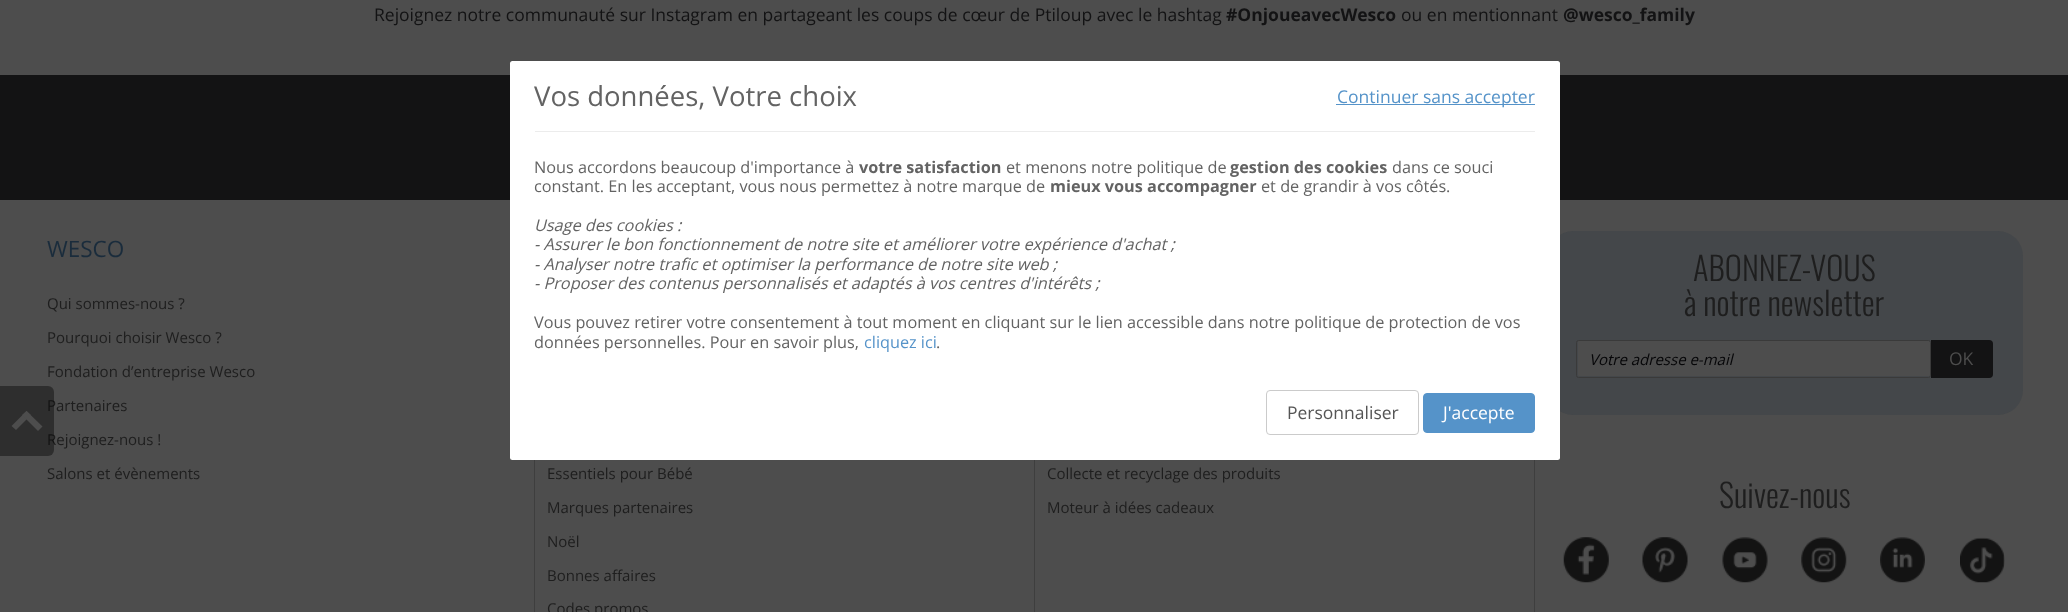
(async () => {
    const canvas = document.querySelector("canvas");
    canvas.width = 2068;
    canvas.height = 612;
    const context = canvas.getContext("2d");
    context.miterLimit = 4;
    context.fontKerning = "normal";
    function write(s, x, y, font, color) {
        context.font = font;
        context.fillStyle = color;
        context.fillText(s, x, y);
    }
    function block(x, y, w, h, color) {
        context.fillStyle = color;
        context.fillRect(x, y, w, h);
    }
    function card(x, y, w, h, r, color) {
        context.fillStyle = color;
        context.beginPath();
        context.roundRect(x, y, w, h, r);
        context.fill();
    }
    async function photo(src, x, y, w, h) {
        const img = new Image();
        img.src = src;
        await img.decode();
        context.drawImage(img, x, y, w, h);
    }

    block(0, 0, 2068, 612, "rgb(77, 77, 77)");
    write("Rejoignez notre communauté sur Instagram en partageant les coups de cœur de Ptiloup avec le hashtag", 374, 21, "17.5px Open Sans", "rgb(19, 19, 20)");
    write("#OnjoueavecWesco", 1226, 21, "bold 17.5px Open Sans", "rgb(19, 19, 20)");
    write("ou en mentionnant", 1401, 21, "17.5px Open Sans", "rgb(19, 19, 20)");
    write("@wesco_family", 1563, 21, "bold 17.5px Open Sans", "rgb(19, 19, 20)");
    write("Partenaires", 47, 411, "15px Open Sans", "rgb(30, 30, 30)");
    write("Rejoignez-nous !", 47, 445, "15px Open Sans", "rgb(30, 30, 30)");
    context.fillStyle = "rgba(0, 0, 0, 0.4)";
    context.beginPath();
    context.roundRect(0, 386, 54, 70, [0, 6, 6, 0]);
    context.fill();
    context.fillStyle = "rgb(77, 77, 77)";
    context.beginPath();
    context.moveTo(11.5, 426);
    context.lineTo(26.5, 411);
    context.lineTo(31, 415);
    context.lineTo(16, 430);
    context.closePath();
    context.fill();
    context.beginPath();
    context.moveTo(22, 415);
    context.lineTo(26.5, 411);
    context.lineTo(42.5, 426.5);
    context.lineTo(38, 431);
    context.closePath();
    context.fill();
    block(0, 75, 2068, 125, "rgb(19, 19, 20)");
    block(534, 460, 1, 152, "rgb(62, 62, 62)");
    write("WESCO", 47, 257, "22.5px Open Sans", "rgb(26, 44, 60)");
    write("Qui sommes-nous ?", 47, 309, "15px Open Sans", "rgb(30, 30, 30)");
    write("Pourquoi choisir Wesco ?", 47, 343, "15px Open Sans", "rgb(30, 30, 30)");
    write("Fondation d’entreprise Wesco", 47, 377, "15px Open Sans", "rgb(30, 30, 30)");
    write("Salons et évènements", 47, 479, "15px Open Sans", "rgb(30, 30, 30)");
    card(1548, 231, 475, 184, 25, "rgb(68, 71, 74)");
    write("ABONNEZ-VOUS", 1693, 281, "300 32.5px Oswald", "rgb(30, 30, 30)");
    write("à notre newsletter", 1684, 316, "300 32.5px Oswald", "rgb(30, 30, 30)");
    card(1578, 341, 352, 35, 1, "rgb(77, 77, 77)");
    context.beginPath();
    context.roundRect(1576.5, 340.5, 354, 37, 2);
    context.strokeStyle = "rgb(58, 58, 58)";
    context.stroke();
    write("Votre adresse e-mail", 1589, 365, "italic 15px Open Sans", "rgb(6, 6, 8)");
    context.fillStyle = "rgb(19, 19, 20)";
    context.beginPath();
    context.roundRect(1931, 340, 62, 38, [0, 4, 4, 0]);
    context.fill();
    write("OK", 1949, 365, "17.5px Open Sans", "rgb(77, 77, 77)");
    write("Suivez-nous", 1719, 508, "300 32.5px Oswald", "rgb(30, 30, 30)");
    await photo("media/1.png", 1563, 537, 46, 46);
    await photo("media/2.png", 1642, 537, 46, 46);
    await photo("media/3.png", 1722, 537, 46, 46);
    await photo("media/4.png", 1801, 537, 46, 46);
    await photo("media/5.png", 1880, 537, 45, 46);
    await photo("media/6.png", 1960, 537, 45, 46);
    block(1034, 460, 1, 152, "rgb(62, 62, 62)");
    write("Essentiels pour Bébé", 547, 479, "15px Open Sans", "rgb(30, 30, 30)");
    write("Marques partenaires", 547, 513, "15px Open Sans", "rgb(30, 30, 30)");
    write("Noël", 547, 547, "15px Open Sans", "rgb(30, 30, 30)");
    write("Bonnes affaires", 547, 581, "15px Open Sans", "rgb(30, 30, 30)");
    write("Codes promos", 547, 614, "15px Open Sans", "rgb(30, 30, 30)");
    block(1534, 460, 1, 152, "rgb(62, 62, 62)");
    write("Collecte et recyclage des produits", 1047, 479, "15px Open Sans", "rgb(30, 30, 30)");
    write("Moteur à idées cadeaux", 1047, 513, "15px Open Sans", "rgb(30, 30, 30)");
    card(510, 61, 1050, 399, 2.5, "rgb(255, 255, 255)");
    block(535, 131, 1000, 1, "rgb(236, 236, 236)");
    write("Vos données, Votre choix", 534, 106, "27.5px Open Sans", "rgb(99, 99, 99)");
    block(1336, 104, 199, 1, "rgb(85, 147, 201)");
    write("Continuer sans accepter", 1337, 103, "17.5px Open Sans", "rgb(85, 147, 201)");
    write("Nous accordons beaucoup d'importance à", 534, 173, "16.25px Open Sans", "rgb(99, 99, 99)");
    write("votre satisfaction", 859, 173, "bold 16.25px Open Sans", "rgb(99, 99, 99)");
    write("et menons notre politique de", 1006, 173, "16.25px Open Sans", "rgb(99, 99, 99)");
    write("gestion des cookies", 1230, 173, "bold 16.25px Open Sans", "rgb(99, 99, 99)");
    write("dans ce souci", 1392, 173, "16.25px Open Sans", "rgb(99, 99, 99)");
    write("constant. En les acceptant, vous nous permettez à notre marque de", 534, 192, "16.25px Open Sans", "rgb(99, 99, 99)");
    write("mieux vous accompagner", 1050, 192, "bold 16.25px Open Sans", "rgb(99, 99, 99)");
    write("et de grandir à vos côtés.", 1261, 192, "16.25px Open Sans", "rgb(99, 99, 99)");
    write("Usage des cookies :", 534, 231, "italic 16.25px Open Sans", "rgb(99, 99, 99)");
    write("- Assurer le bon fonctionnement de notre site et améliorer votre expérience d'achat ;", 534, 250, "italic 16.25px Open Sans", "rgb(99, 99, 99)");
    write("- Analyser notre trafic et optimiser la performance de notre site web ;", 534, 270, "italic 16.25px Open Sans", "rgb(99, 99, 99)");
    write("- Proposer des contenus personnalisés et adaptés à vos centres d'intérêts ;", 534, 289, "italic 16.25px Open Sans", "rgb(99, 99, 99)");
    write("Vous pouvez retirer votre consentement à tout moment en cliquant sur le lien accessible dans notre politique de protection de vos", 534, 328, "16.25px Open Sans", "rgb(99, 99, 99)");
    write("données personnelles. Pour en savoir plus,", 534, 348, "16.25px Open Sans", "rgb(99, 99, 99)");
    write("cliquez ici", 864, 348, "16.25px Open Sans", "rgb(85, 147, 201)");
    write(".", 936, 348, "16.25px Open Sans", "rgb(99, 99, 99)");
    context.beginPath();
    context.roundRect(1266.5, 390.5, 152, 44, 3.5);
    context.strokeStyle = "rgb(203, 203, 203)";
    context.stroke();
    write("Personnaliser", 1287, 419, "17.5px Open Sans", "rgb(85, 85, 85)");
    context.fillStyle = "rgb(85, 147, 201)";
    context.beginPath();
    context.roundRect(1423.5, 393.5, 111, 39, 3.5);
    context.fill();
    context.strokeStyle = "rgb(85, 147, 201)";
    context.stroke();
    write("J'accepte", 1443, 419, "17.5px Open Sans", "rgb(255, 255, 255)");
})();
